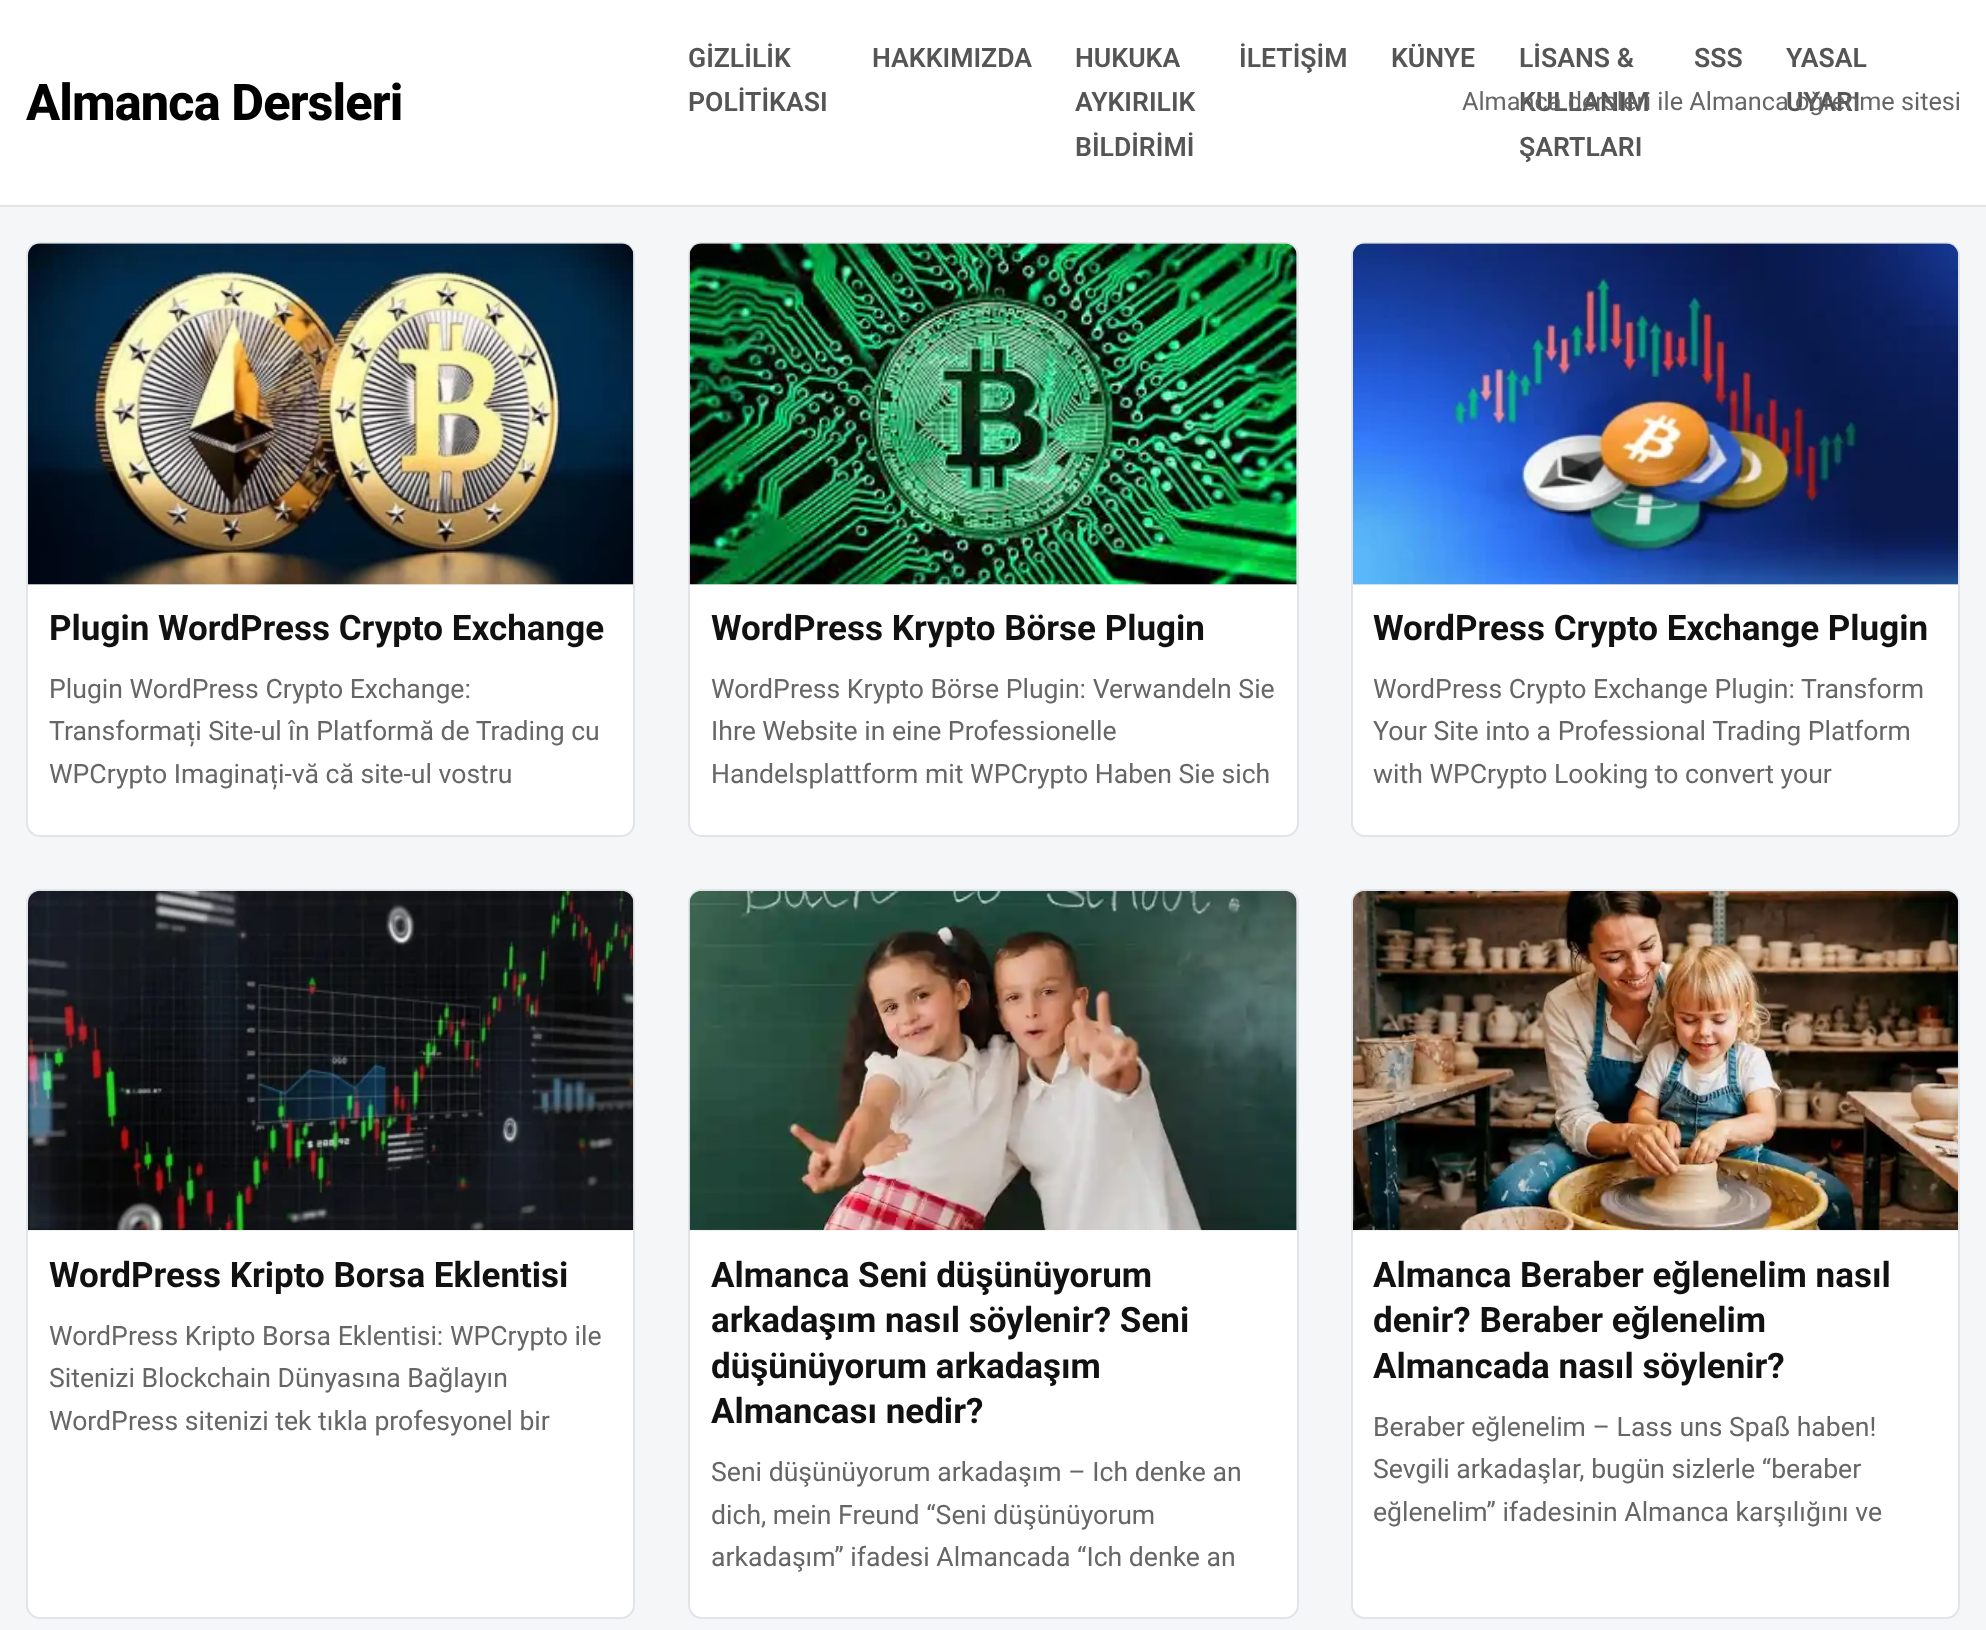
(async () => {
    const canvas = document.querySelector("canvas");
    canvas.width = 1986;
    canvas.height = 1630;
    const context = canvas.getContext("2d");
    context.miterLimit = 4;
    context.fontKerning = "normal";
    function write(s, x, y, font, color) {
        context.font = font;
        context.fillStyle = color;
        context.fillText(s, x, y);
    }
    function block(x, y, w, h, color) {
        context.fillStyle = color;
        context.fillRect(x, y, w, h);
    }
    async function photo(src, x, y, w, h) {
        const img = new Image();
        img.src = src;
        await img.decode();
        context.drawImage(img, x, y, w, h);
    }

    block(0, 0, 1986, 1630, "rgb(244, 246, 248)");
    block(0, 0, 1986, 205, "rgb(255, 255, 255)");
    block(0, 205, 1986, 2, "rgb(229, 229, 229)");
    context.letterSpacing = "-0.9px";
    write("Almanca Dersleri", 26, 120, "800 50.5px Roboto", "rgb(0, 0, 0)");
    context.letterSpacing = "0px";
    write("GİZLİLİK", 688, 67, "600 26.6px Roboto", "rgb(85, 85, 85)");
    write("POLİTİKASI", 688, 111, "600 26.6px Roboto", "rgb(85, 85, 85)");
    write("HAKKIMIZDA", 872, 67, "600 26.6px Roboto", "rgb(85, 85, 85)");
    write("HUKUKA", 1075, 67, "600 26.6px Roboto", "rgb(85, 85, 85)");
    write("AYKIRILIK", 1075, 111, "600 26.6px Roboto", "rgb(85, 85, 85)");
    write("BİLDİRİMİ", 1075, 156, "600 26.6px Roboto", "rgb(85, 85, 85)");
    write("İLETİŞİM", 1239, 67, "600 26.6px Roboto", "rgb(85, 85, 85)");
    write("KÜNYE", 1391, 67, "600 26.6px Roboto", "rgb(85, 85, 85)");
    write("LİSANS &", 1519, 67, "600 26.6px Roboto", "rgb(85, 85, 85)");
    write("KULLANIM", 1519, 111, "600 26.6px Roboto", "rgb(85, 85, 85)");
    write("ŞARTLARI", 1519, 156, "600 26.6px Roboto", "rgb(85, 85, 85)");
    write("SSS", 1694, 67, "600 26.6px Roboto", "rgb(85, 85, 85)");
    write("YASAL", 1786, 67, "600 26.6px Roboto", "rgb(85, 85, 85)");
    write("UYARI", 1786, 111, "600 26.6px Roboto", "rgb(85, 85, 85)");
    write("Almanca dersleri ile Almanca öğrenme sitesi", 1462, 110, "25.25px Roboto", "rgb(102, 102, 102)");
    context.fillStyle = "rgb(255, 255, 255)";
    context.beginPath();
    context.roundRect(27, 243, 607, 593, 13);
    context.fill();
    context.strokeStyle = "rgb(225, 228, 232)";
    context.lineWidth = 2;
    context.stroke();
    context.fillStyle = "rgb(238, 238, 238)";
    context.beginPath();
    context.roundRect(28, 243, 606, 342, [12, 12, 0, 0]);
    context.fill();
    await photo("media/1.png", 28, 243, 606, 342);
    write("Plugin WordPress Crypto Exchange", 49, 640, "bold 35px Roboto", "rgb(17, 17, 17)");
    write("Plugin WordPress Crypto Exchange:", 49, 698, "26.6px Roboto", "rgb(102, 102, 102)");
    write("Transformați Site-ul în Platformă de Trading cu", 49, 740, "26.6px Roboto", "rgb(102, 102, 102)");
    write("WPCrypto Imaginați-vă că site-ul vostru", 49, 783, "26.6px Roboto", "rgb(102, 102, 102)");
    context.fillStyle = "rgb(255, 255, 255)";
    context.beginPath();
    context.roundRect(689, 243, 609, 593, 13);
    context.fill();
    context.stroke();
    context.fillStyle = "rgb(238, 238, 238)";
    context.beginPath();
    context.roundRect(690, 243, 607, 342, [12, 12, 0, 0]);
    context.fill();
    await photo("media/2.png", 689, 243, 608, 342);
    write("WordPress Krypto Börse Plugin", 711, 640, "bold 35px Roboto", "rgb(17, 17, 17)");
    write("WordPress Krypto Börse Plugin: Verwandeln Sie", 711, 698, "26.6px Roboto", "rgb(102, 102, 102)");
    write("Ihre Website in eine Professionelle", 711, 740, "26.6px Roboto", "rgb(102, 102, 102)");
    write("Handelsplattform mit WPCrypto Haben Sie sich", 711, 783, "26.6px Roboto", "rgb(102, 102, 102)");
    context.fillStyle = "rgb(255, 255, 255)";
    context.beginPath();
    context.roundRect(1352, 243, 607, 593, 13);
    context.fill();
    context.stroke();
    context.fillStyle = "rgb(238, 238, 238)";
    context.beginPath();
    context.roundRect(1353, 243, 605, 342, [12, 12, 0, 0]);
    context.fill();
    await photo("media/3.png", 1353, 243, 605, 342);
    write("WordPress Crypto Exchange Plugin", 1373, 640, "bold 35px Roboto", "rgb(17, 17, 17)");
    write("WordPress Crypto Exchange Plugin: Transform", 1373, 698, "26.6px Roboto", "rgb(102, 102, 102)");
    write("Your Site into a Professional Trading Platform", 1373, 740, "26.6px Roboto", "rgb(102, 102, 102)");
    write("with WPCrypto Looking to convert your", 1373, 783, "26.6px Roboto", "rgb(102, 102, 102)");
    context.fillStyle = "rgb(255, 255, 255)";
    context.beginPath();
    context.roundRect(27, 890, 607, 728, 13);
    context.fill();
    context.stroke();
    context.fillStyle = "rgb(238, 238, 238)";
    context.beginPath();
    context.roundRect(28, 891, 606, 339, [12, 12, 0, 0]);
    context.fill();
    await photo("media/4.png", 28, 891, 606, 340);
    write("WordPress Kripto Borsa Eklentisi", 49, 1287, "bold 35px Roboto", "rgb(17, 17, 17)");
    write("WordPress Kripto Borsa Eklentisi: WPCrypto ile", 49, 1345, "26.6px Roboto", "rgb(102, 102, 102)");
    write("Sitenizi Blockchain Dünyasına Bağlayın", 49, 1387, "26.6px Roboto", "rgb(102, 102, 102)");
    write("WordPress sitenizi tek tıkla profesyonel bir", 49, 1430, "26.6px Roboto", "rgb(102, 102, 102)");
    context.fillStyle = "rgb(255, 255, 255)";
    context.beginPath();
    context.roundRect(689, 890, 609, 728, 13);
    context.fill();
    context.stroke();
    context.fillStyle = "rgb(238, 238, 238)";
    context.beginPath();
    context.roundRect(690, 891, 607, 339, [12, 12, 0, 0]);
    context.fill();
    await photo("media/5.png", 689, 891, 608, 340);
    write("Almanca Seni düşünüyorum", 711, 1287, "bold 35px Roboto", "rgb(17, 17, 17)");
    write("arkadaşım nasıl söylenir? Seni", 711, 1332, "bold 35px Roboto", "rgb(17, 17, 17)");
    write("düşünüyorum arkadaşım", 711, 1378, "bold 35px Roboto", "rgb(17, 17, 17)");
    write("Almancası nedir?", 711, 1423, "bold 35px Roboto", "rgb(17, 17, 17)");
    write("Seni düşünüyorum arkadaşım – Ich denke an", 711, 1481, "26.6px Roboto", "rgb(102, 102, 102)");
    write("dich, mein Freund “Seni düşünüyorum", 711, 1524, "26.6px Roboto", "rgb(102, 102, 102)");
    write("arkadaşım” ifadesi Almancada “Ich denke an", 711, 1566, "26.6px Roboto", "rgb(102, 102, 102)");
    context.fillStyle = "rgb(255, 255, 255)";
    context.beginPath();
    context.roundRect(1352, 890, 607, 728, 13);
    context.fill();
    context.stroke();
    await photo("media/6.png", 1353, 891, 605, 340);
    write("Almanca Beraber eğlenelim nasıl", 1373, 1287, "bold 35px Roboto", "rgb(17, 17, 17)");
    write("denir? Beraber eğlenelim", 1373, 1332, "bold 35px Roboto", "rgb(17, 17, 17)");
    write("Almancada nasıl söylenir?", 1373, 1378, "bold 35px Roboto", "rgb(17, 17, 17)");
    write("Beraber eğlenelim – Lass uns Spaß haben!", 1373, 1436, "26.6px Roboto", "rgb(102, 102, 102)");
    write("Sevgili arkadaşlar, bugün sizlerle “beraber", 1373, 1478, "26.6px Roboto", "rgb(102, 102, 102)");
    write("eğlenelim” ifadesinin Almanca karşılığını ve", 1373, 1521, "26.6px Roboto", "rgb(102, 102, 102)");
})();
